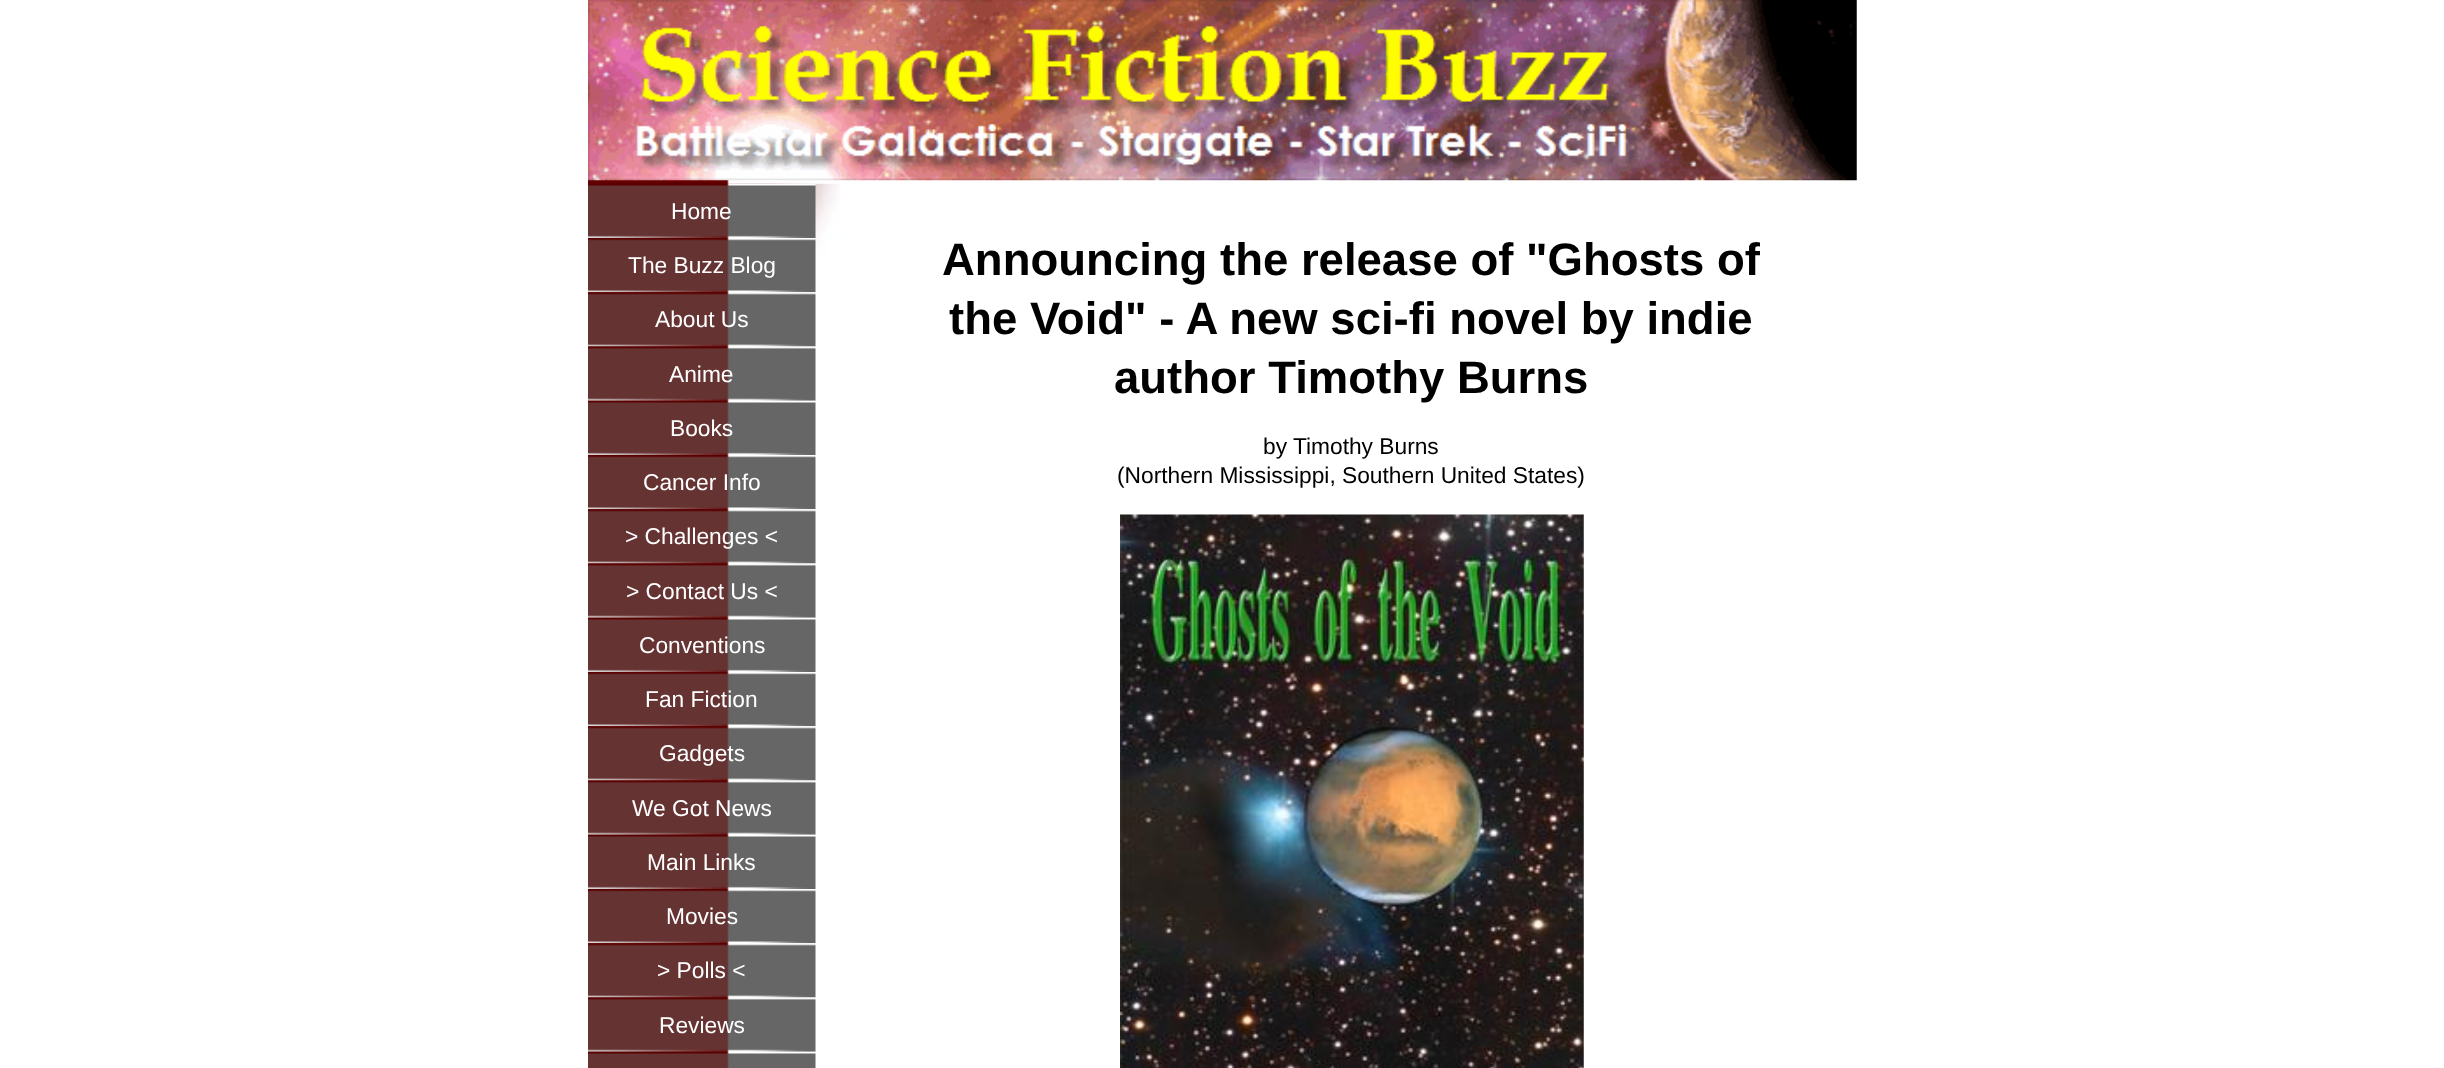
(async () => {
    const canvas = document.querySelector("canvas");
    canvas.width = 2444;
    canvas.height = 1068;
    const context = canvas.getContext("2d");
    context.miterLimit = 4;
    context.fontKerning = "normal";
    function write(s, x, y, font, color) {
        context.font = font;
        context.fillStyle = color;
        context.fillText(s, x, y);
    }
    function block(x, y, w, h, color) {
        context.fillStyle = color;
        context.fillRect(x, y, w, h);
    }
    async function photo(src, x, y, w, h) {
        const img = new Image();
        img.src = src;
        await img.decode();
        context.drawImage(img, x, y, w, h);
    }

    block(0, 0, 2444, 1068, "rgb(255, 255, 255)");
    await photo("media/1.png", 588, 180, 141, 872);
    await photo("media/2.png", 588, 0, 1269, 181);
    await photo("media/3.png", 601, 183, 239, 789);
    await photo("media/4.png", 588, 183, 228, 55);
    write("Home", 671, 219, "22.75px Liberation Sans", "rgb(255, 255, 255)");
    await photo("media/5.png", 588, 238, 228, 55);
    write("The Buzz Blog", 628, 273, "22.75px Liberation Sans", "rgb(255, 255, 255)");
    await photo("media/6.png", 588, 292, 228, 55);
    write("About Us", 655, 327, "22.75px Liberation Sans", "rgb(255, 255, 255)");
    await photo("media/7.png", 588, 346, 228, 55);
    write("Anime", 669, 382, "22.75px Liberation Sans", "rgb(255, 255, 255)");
    await photo("media/8.png", 588, 400, 228, 55);
    write("Books", 670, 436, "22.75px Liberation Sans", "rgb(255, 255, 255)");
    await photo("media/9.png", 588, 455, 228, 55);
    write("Cancer Info", 643, 490, "22.75px Liberation Sans", "rgb(255, 255, 255)");
    await photo("media/10.png", 588, 509, 228, 55);
    write("> Challenges <", 625, 544, "22.75px Liberation Sans", "rgb(255, 255, 255)");
    await photo("media/7.png", 588, 563, 228, 55);
    write("> Contact Us <", 626, 599, "22.75px Liberation Sans", "rgb(255, 255, 255)");
    await photo("media/8.png", 588, 617, 228, 55);
    write("Conventions", 639, 653, "22.75px Liberation Sans", "rgb(255, 255, 255)");
    await photo("media/9.png", 588, 672, 228, 55);
    write("Fan Fiction", 645, 707, "22.75px Liberation Sans", "rgb(255, 255, 255)");
    await photo("media/10.png", 588, 726, 228, 55);
    write("Gadgets", 659, 761, "22.75px Liberation Sans", "rgb(255, 255, 255)");
    await photo("media/7.png", 588, 780, 228, 55);
    write("We Got News", 632, 816, "22.75px Liberation Sans", "rgb(255, 255, 255)");
    await photo("media/8.png", 588, 834, 228, 55);
    write("Main Links", 647, 870, "22.75px Liberation Sans", "rgb(255, 255, 255)");
    await photo("media/9.png", 588, 889, 228, 55);
    write("Movies", 666, 924, "22.75px Liberation Sans", "rgb(255, 255, 255)");
    await photo("media/11.png", 588, 943, 228, 55);
    write("> Polls <", 657, 978, "22.75px Liberation Sans", "rgb(255, 255, 255)");
    await photo("media/12.png", 588, 997, 228, 55);
    write("Reviews", 659, 1033, "22.75px Liberation Sans", "rgb(255, 255, 255)");
    await photo("media/13.png", 588, 1051, 228, 17);
    write("Announcing the release of \"Ghosts of", 942, 275, "bold 45.5px Liberation Sans", "rgb(0, 0, 0)");
    write("the Void\" - A new sci-fi novel by indie", 949, 334, "bold 45.5px Liberation Sans", "rgb(0, 0, 0)");
    write("author Timothy Burns", 1114, 393, "bold 45.5px Liberation Sans", "rgb(0, 0, 0)");
    write("by Timothy Burns", 1263, 454, "22.75px Liberation Sans", "rgb(0, 0, 0)");
    write("(Northern Mississippi, Southern United States)", 1117, 483, "22.75px Liberation Sans", "rgb(0, 0, 0)");
    await photo("media/14.png", 1120, 514, 464, 554);
})();
